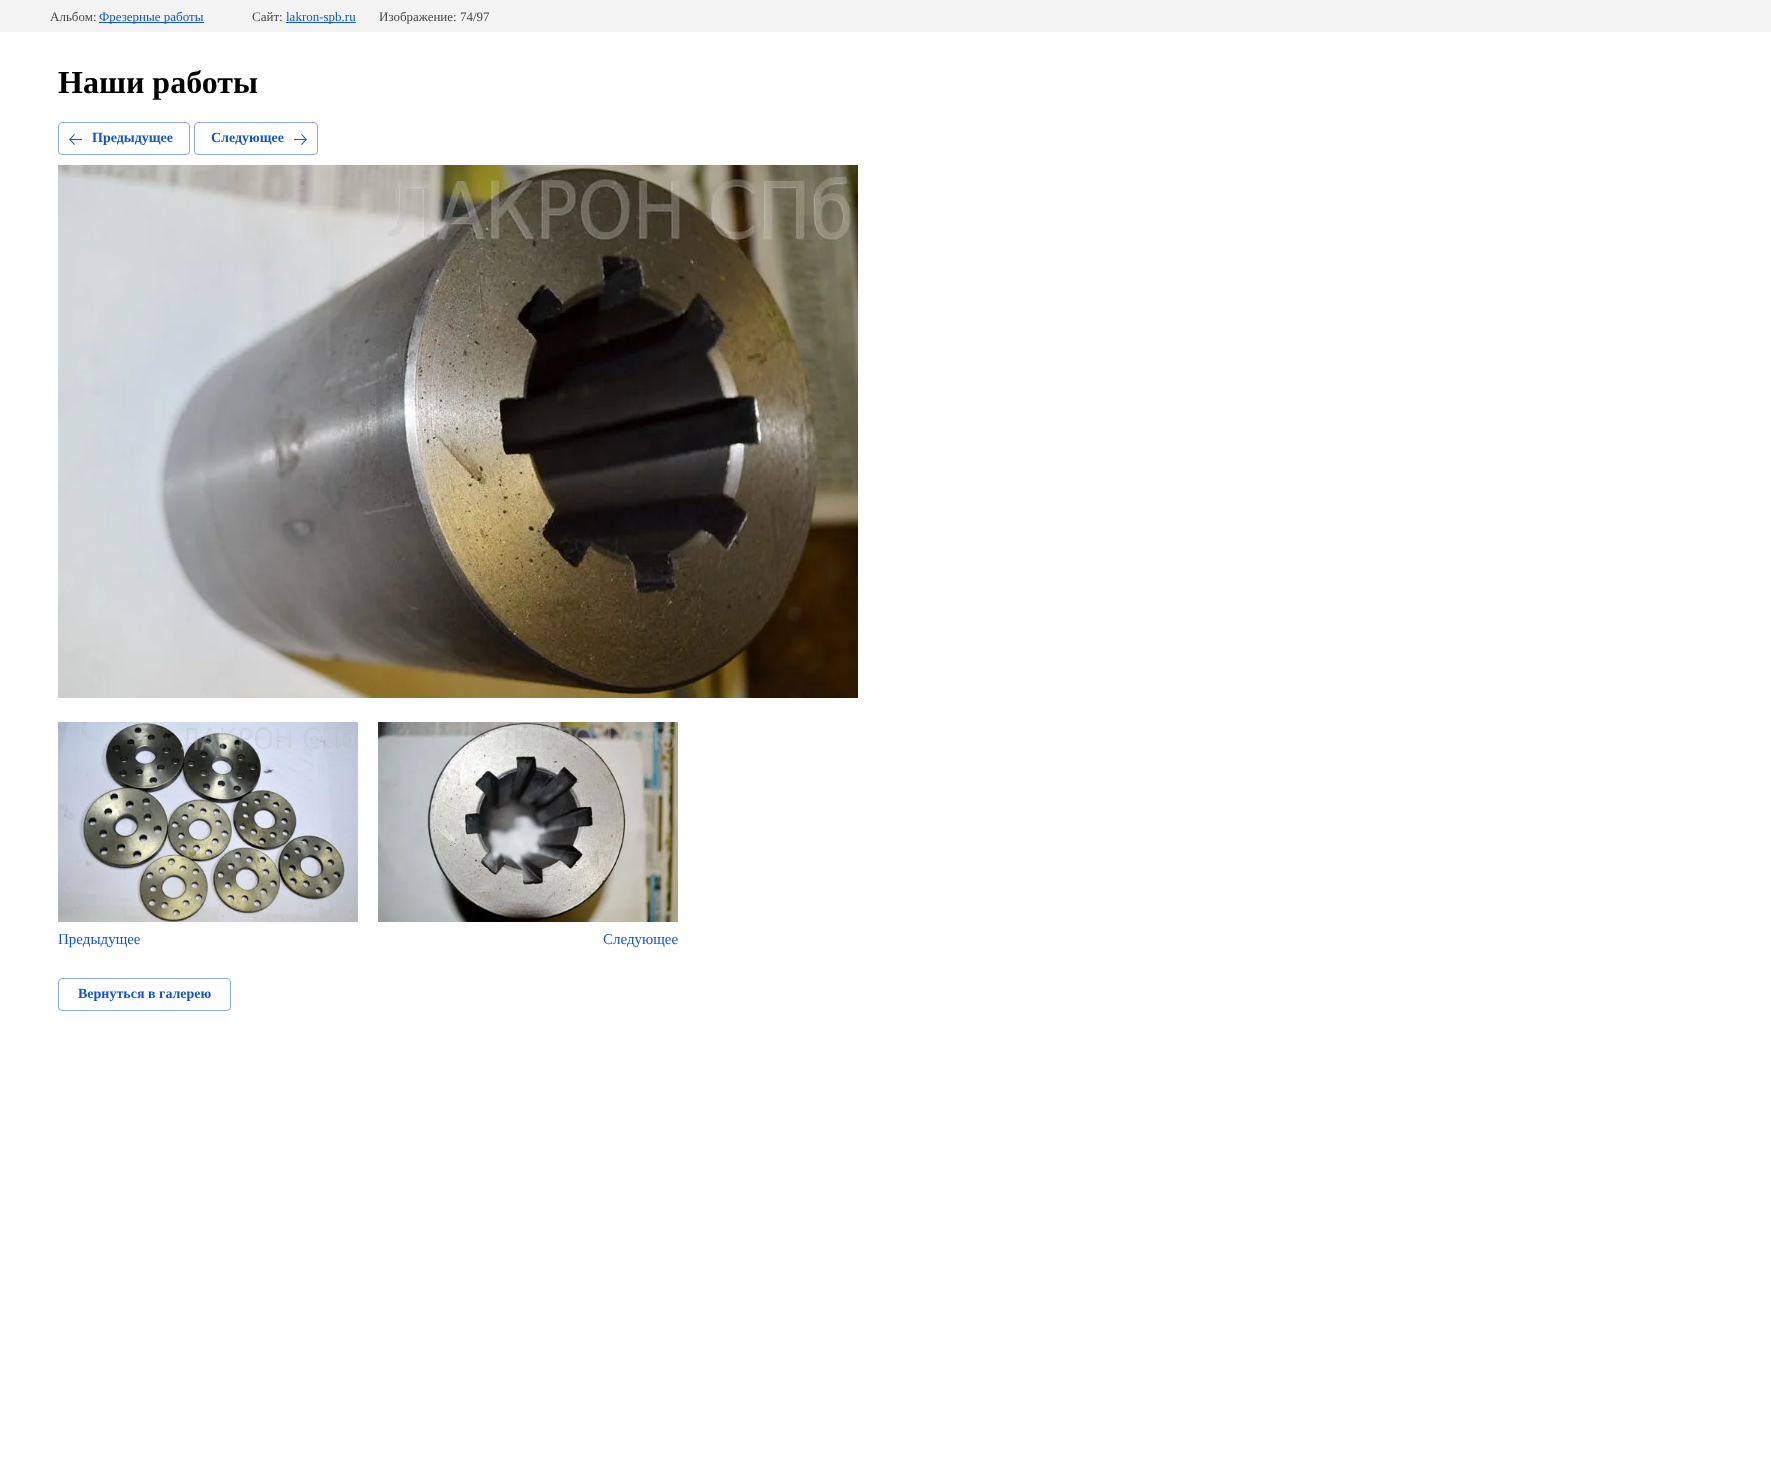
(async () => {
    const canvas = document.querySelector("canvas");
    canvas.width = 1771;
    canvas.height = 1459;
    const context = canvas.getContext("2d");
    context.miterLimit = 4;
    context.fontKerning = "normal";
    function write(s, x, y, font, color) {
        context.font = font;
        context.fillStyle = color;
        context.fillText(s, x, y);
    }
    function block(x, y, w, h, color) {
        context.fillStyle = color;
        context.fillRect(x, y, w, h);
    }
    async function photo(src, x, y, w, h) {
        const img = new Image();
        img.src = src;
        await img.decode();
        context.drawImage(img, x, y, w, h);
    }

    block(0, 0, 1771, 1459, "rgb(255, 255, 255)");
    block(0, 0, 1771, 32, "rgb(243, 243, 243)");
    write("Альбом:", 50, 21, "13px Liberation Serif", "rgb(72, 72, 72)");
    block(99, 22, 105, 1, "rgb(17, 85, 204)");
    write("Фрезерные работы", 99, 21, "13px Liberation Serif", "rgb(17, 85, 204)");
    write("Сайт:", 252, 21, "13px Liberation Serif", "rgb(72, 72, 72)");
    block(286, 22, 70, 1, "rgb(17, 85, 204)");
    write("lakron-spb.ru", 286, 21, "13px Liberation Serif", "rgb(17, 85, 204)");
    write("Изображение: 74/97", 379, 21, "13px Liberation Serif", "rgb(72, 72, 72)");
    write("Наши работы", 58, 93, "bold 32px Liberation Serif", "rgb(0, 0, 0)");
    context.beginPath();
    context.roundRect(58.5, 122.5, 131, 32, 3.5);
    context.strokeStyle = "rgb(136, 170, 230)";
    context.stroke();
    await photo("media/1.png", 69, 134, 13, 11);
    write("Предыдущее", 92, 142, "bold 14px Liberation Serif", "rgb(17, 85, 204)");
    context.beginPath();
    context.roundRect(194.5, 122.5, 123, 32, 3.5);
    context.stroke();
    write("Следующее", 211, 142, "bold 14px Liberation Serif", "rgb(17, 85, 204)");
    await photo("media/2.png", 294, 134, 13, 11);
    await photo("media/3.png", 58, 165, 800, 533);
    await photo("media/4.png", 58, 722, 300, 200);
    write("Предыдущее", 58, 944, "15px Liberation Serif", "rgb(17, 85, 204)");
    await photo("media/5.png", 378, 722, 300, 200);
    write("Следующее", 603, 944, "15px Liberation Serif", "rgb(17, 85, 204)");
    context.beginPath();
    context.roundRect(58.5, 978.5, 172, 32, 3.5);
    context.stroke();
    write("Вернуться в галерею", 78, 998, "bold 14px Liberation Serif", "rgb(17, 85, 204)");
})();
